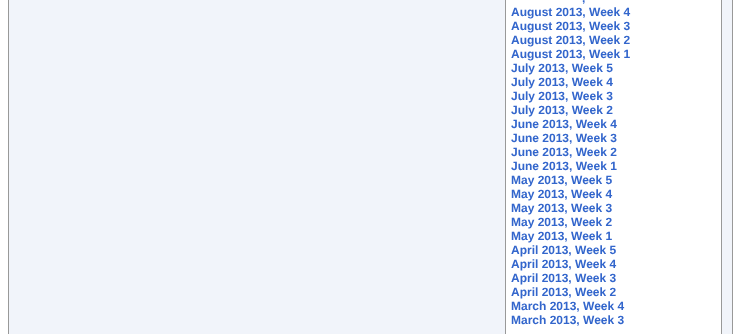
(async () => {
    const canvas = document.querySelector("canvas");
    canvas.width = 741;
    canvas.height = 334;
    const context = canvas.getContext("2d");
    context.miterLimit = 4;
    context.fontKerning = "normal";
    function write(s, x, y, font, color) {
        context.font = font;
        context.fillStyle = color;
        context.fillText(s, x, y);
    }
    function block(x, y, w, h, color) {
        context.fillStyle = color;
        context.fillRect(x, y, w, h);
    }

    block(0, 0, 741, 334, "rgb(255, 255, 255)");
    context.strokeStyle = "rgb(153, 153, 153)";
    context.strokeRect(8.5, -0.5, 724, 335);
    block(9, 0, 723, 334, "rgb(241, 244, 250)");
    block(506, 0, 215, 334, "rgb(255, 255, 255)");
    block(721, 0, 1, 334, "rgb(153, 153, 153)");
    block(505, 0, 1, 334, "rgb(153, 153, 153)");
    write(",", 582, 2, "bold 12px Liberation Sans", "rgb(51, 102, 204)");
    write("August 2013, Week 4", 511, 16, "bold 12px Liberation Sans", "rgb(51, 102, 204)");
    write("August 2013, Week 3", 511, 30, "bold 12px Liberation Sans", "rgb(51, 102, 204)");
    write("August 2013, Week 2", 511, 44, "bold 12px Liberation Sans", "rgb(51, 102, 204)");
    write("August 2013, Week 1", 511, 58, "bold 12px Liberation Sans", "rgb(51, 102, 204)");
    write("July 2013, Week 5", 511, 72, "bold 12px Liberation Sans", "rgb(51, 102, 204)");
    write("July 2013, Week 4", 511, 86, "bold 12px Liberation Sans", "rgb(51, 102, 204)");
    write("July 2013, Week 3", 511, 100, "bold 12px Liberation Sans", "rgb(51, 102, 204)");
    write("July 2013, Week 2", 511, 114, "bold 12px Liberation Sans", "rgb(51, 102, 204)");
    write("June 2013, Week 4", 511, 128, "bold 12px Liberation Sans", "rgb(51, 102, 204)");
    write("June 2013, Week 3", 511, 142, "bold 12px Liberation Sans", "rgb(51, 102, 204)");
    write("June 2013, Week 2", 511, 156, "bold 12px Liberation Sans", "rgb(51, 102, 204)");
    write("June 2013, Week 1", 511, 170, "bold 12px Liberation Sans", "rgb(51, 102, 204)");
    write("May 2013, Week 5", 511, 184, "bold 12px Liberation Sans", "rgb(51, 102, 204)");
    write("May 2013, Week 4", 511, 198, "bold 12px Liberation Sans", "rgb(51, 102, 204)");
    write("May 2013, Week 3", 511, 212, "bold 12px Liberation Sans", "rgb(51, 102, 204)");
    write("May 2013, Week 2", 511, 226, "bold 12px Liberation Sans", "rgb(51, 102, 204)");
    write("May 2013, Week 1", 511, 240, "bold 12px Liberation Sans", "rgb(51, 102, 204)");
    write("April 2013, Week 5", 511, 254, "bold 12px Liberation Sans", "rgb(51, 102, 204)");
    write("April 2013, Week 4", 511, 268, "bold 12px Liberation Sans", "rgb(51, 102, 204)");
    write("April 2013, Week 3", 511, 282, "bold 12px Liberation Sans", "rgb(51, 102, 204)");
    write("April 2013, Week 2", 511, 296, "bold 12px Liberation Sans", "rgb(51, 102, 204)");
    write("March 2013, Week 4", 511, 310, "bold 12px Liberation Sans", "rgb(51, 102, 204)");
    write("March 2013, Week 3", 511, 324, "bold 12px Liberation Sans", "rgb(51, 102, 204)");
})();
